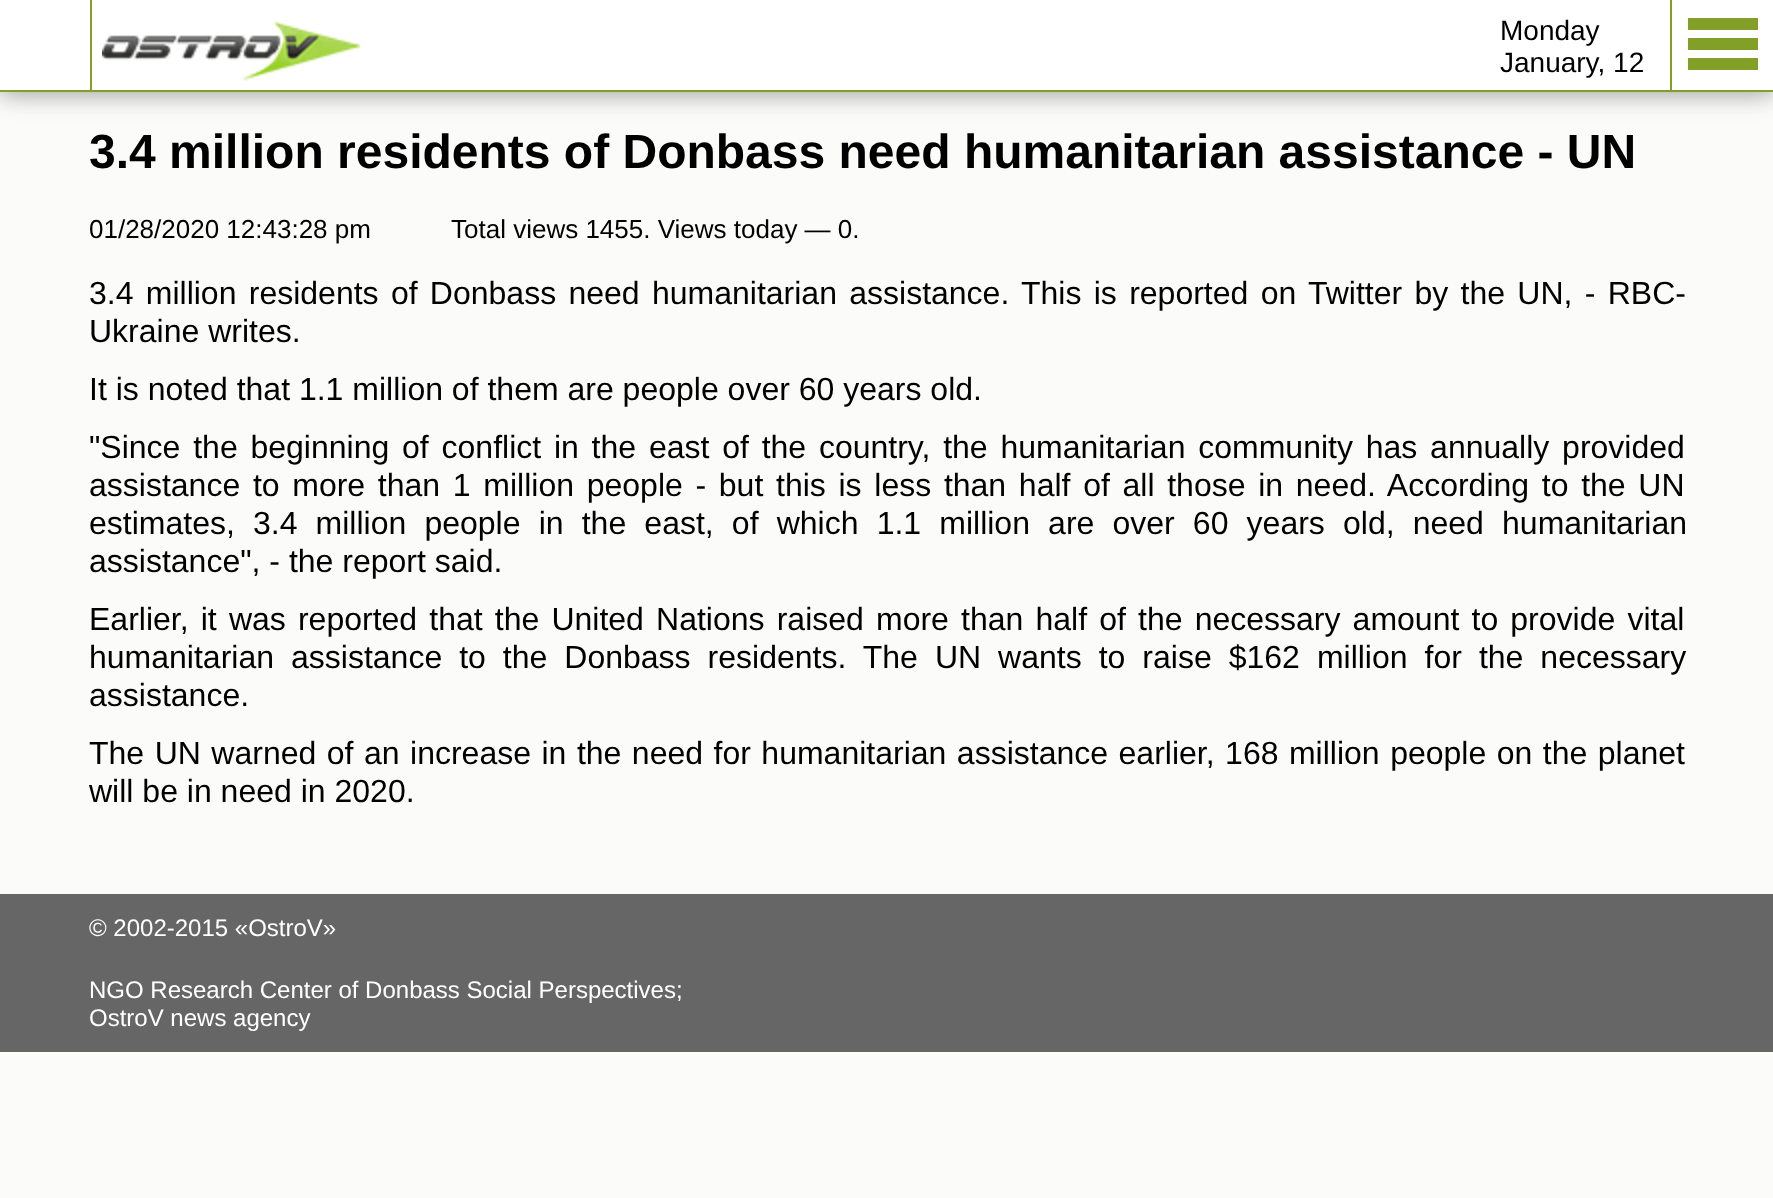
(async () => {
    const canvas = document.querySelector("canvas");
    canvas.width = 1773;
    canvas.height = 1198;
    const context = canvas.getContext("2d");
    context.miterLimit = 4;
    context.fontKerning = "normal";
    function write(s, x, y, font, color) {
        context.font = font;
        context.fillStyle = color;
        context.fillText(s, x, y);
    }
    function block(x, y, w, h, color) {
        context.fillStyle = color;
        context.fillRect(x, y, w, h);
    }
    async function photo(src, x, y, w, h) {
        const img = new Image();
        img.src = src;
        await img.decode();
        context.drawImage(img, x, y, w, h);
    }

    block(0, 0, 1773, 1198, "rgb(251, 252, 249)");
    context.fillStyle = "rgba(50, 50, 50, 0.47)";
    context.filter = "blur(12px)";
    context.beginPath();
    context.rect(0, 2, 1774, 92);
    context.fill();
    context.filter = "none";
    block(0, 0, 1773, 90, "rgb(255, 255, 255)");
    block(0, 90, 1773, 2, "rgb(130, 159, 40)");
    block(90, 0, 2, 90, "rgb(130, 159, 40)");
    await photo("media/1.png", 102, 21, 258, 60);
    write("Monday", 1500, 40, "28px Liberation Sans", "rgb(0, 0, 0)");
    write("January, 12", 1500, 72, "28px Liberation Sans", "rgb(0, 0, 0)");
    block(1670, 0, 2, 90, "rgb(130, 159, 40)");
    block(1688, 18, 70, 12, "rgb(130, 159, 40)");
    block(1688, 38, 70, 12, "rgb(130, 159, 40)");
    block(1688, 58, 70, 12, "rgb(130, 159, 40)");
    write("3.4 million residents of Donbass need humanitarian assistance - UN", 89, 168, "bold 48px Liberation Sans", "rgb(0, 0, 0)");
    write("01/28/2020 12:43:28 pm", 89, 238, "26px Liberation Sans", "rgb(0, 0, 0)");
    write("Total views 1455. Views today — 0.", 451, 238, "26px Liberation Sans", "rgb(0, 0, 0)");
    context.wordSpacing = "3.4px";
    write("3.4 million residents of Donbass need humanitarian assistance. This is reported on Twitter by the UN, - RBC-", 89, 304, "32px Liberation Sans", "rgb(0, 0, 0)");
    context.wordSpacing = "0px";
    write("Ukraine writes.", 89, 342, "32px Liberation Sans", "rgb(0, 0, 0)");
    write("It is noted that 1.1 million of them are people over 60 years old.", 89, 400, "32px Liberation Sans", "rgb(0, 0, 0)");
    context.wordSpacing = "3.9px";
    write("\"Since the beginning of conflict in the east of the country, the humanitarian community has annually provided", 89, 458, "32px Liberation Sans", "rgb(0, 0, 0)");
    context.wordSpacing = "3.8px";
    write("assistance to more than 1 million people - but this is less than half of all those in need. According to the UN", 89, 496, "32px Liberation Sans", "rgb(0, 0, 0)");
    context.wordSpacing = "9.25px";
    write("estimates, 3.4 million people in the east, of which 1.1 million are over 60 years old, need humanitarian", 89, 534, "32px Liberation Sans", "rgb(0, 0, 0)");
    context.wordSpacing = "0px";
    write("assistance\", - the report said.", 89, 572, "32px Liberation Sans", "rgb(0, 0, 0)");
    context.wordSpacing = "3.25px";
    write("Earlier, it was reported that the United Nations raised more than half of the necessary amount to provide vital", 89, 630, "32px Liberation Sans", "rgb(0, 0, 0)");
    context.wordSpacing = "8.1px";
    write("humanitarian assistance to the Donbass residents. The UN wants to raise $162 million for the necessary", 89, 668, "32px Liberation Sans", "rgb(0, 0, 0)");
    context.wordSpacing = "0px";
    write("assistance.", 89, 706, "32px Liberation Sans", "rgb(0, 0, 0)");
    context.wordSpacing = "1.6px";
    write("The UN warned of an increase in the need for humanitarian assistance earlier, 168 million people on the planet", 89, 764, "32px Liberation Sans", "rgb(0, 0, 0)");
    context.wordSpacing = "0px";
    write("will be in need in 2020.", 89, 802, "32px Liberation Sans", "rgb(0, 0, 0)");
    block(0, 894, 1773, 158, "rgb(102, 102, 102)");
    write("© 2002-2015 «OstroV»", 89, 936, "24px Liberation Sans", "rgb(255, 255, 255)");
    write("NGO Research Center of Donbass Social Perspectives;", 89, 998, "24px Liberation Sans", "rgb(255, 255, 255)");
    write("OstroV news agency", 89, 1026, "24px Liberation Sans", "rgb(255, 255, 255)");
})();
